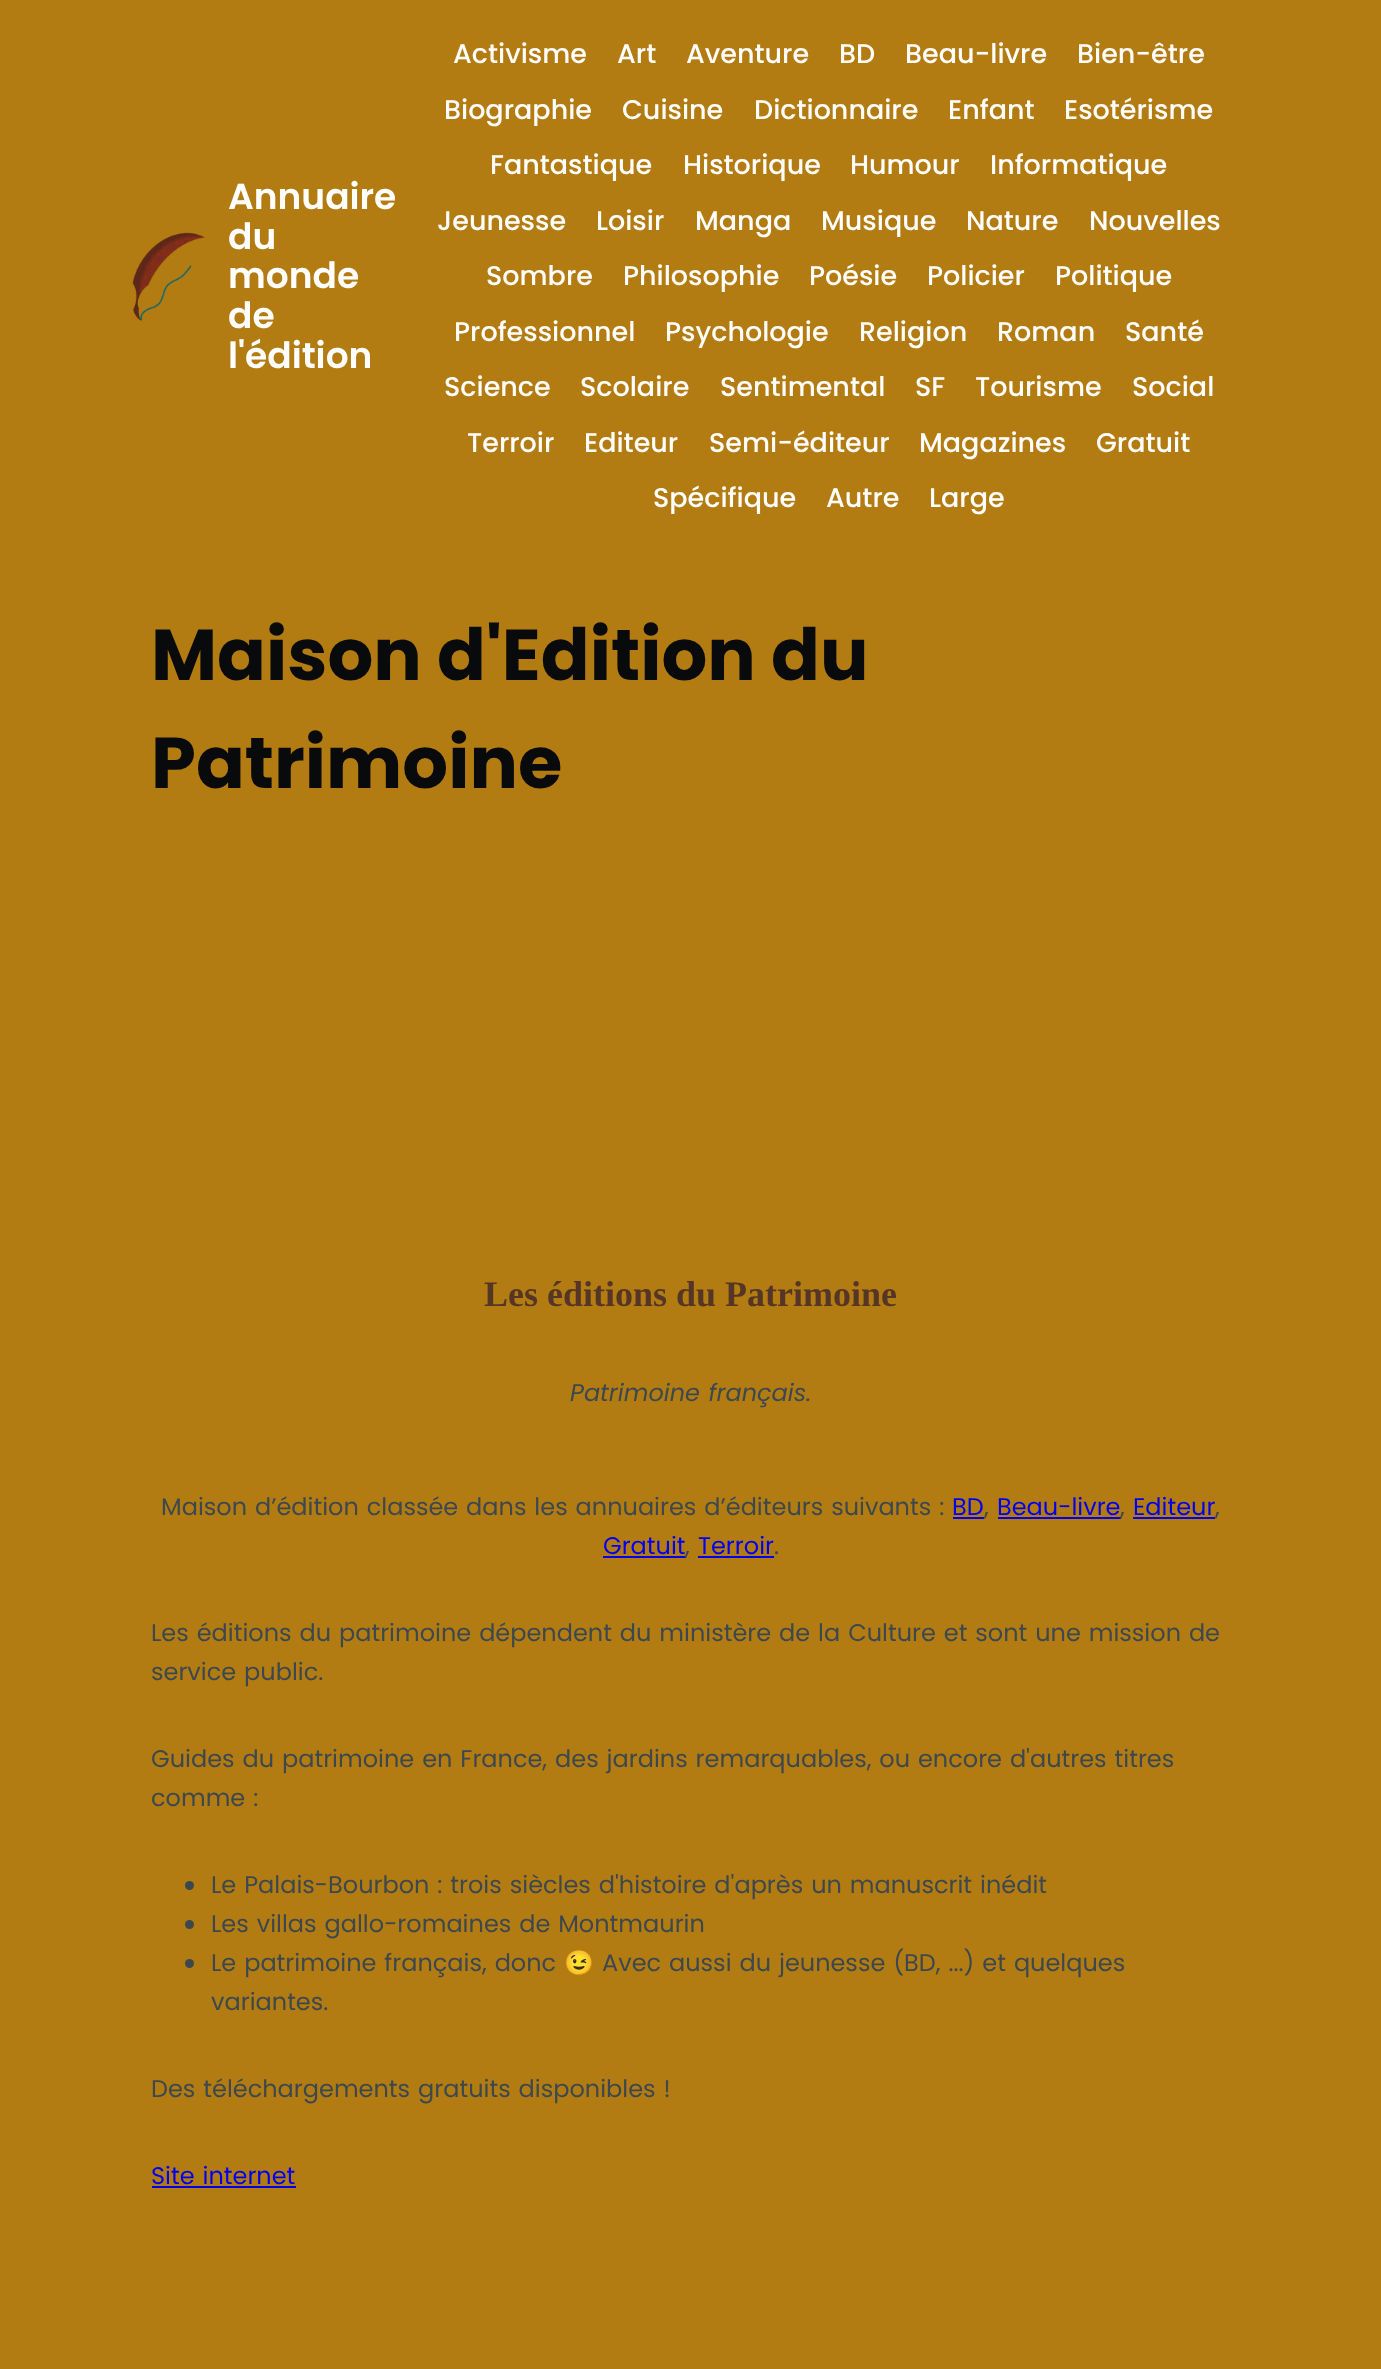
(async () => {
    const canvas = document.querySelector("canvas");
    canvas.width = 1381;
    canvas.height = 2369;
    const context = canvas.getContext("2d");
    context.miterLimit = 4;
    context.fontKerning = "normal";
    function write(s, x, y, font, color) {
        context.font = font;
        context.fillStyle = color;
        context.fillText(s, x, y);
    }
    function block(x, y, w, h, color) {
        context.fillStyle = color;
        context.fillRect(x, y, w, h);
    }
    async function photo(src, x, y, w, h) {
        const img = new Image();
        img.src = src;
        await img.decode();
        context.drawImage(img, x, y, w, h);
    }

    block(0, 0, 1381, 2369, "rgb(179, 124, 18)");
    await photo("media/1.png", 132, 232, 73, 89);
    write("Annuaire", 228, 209, "600 36px Poppins", "rgb(255, 255, 255)");
    write("du", 228, 249, "600 36px Poppins", "rgb(255, 255, 255)");
    write("monde", 228, 288, "600 36px Poppins", "rgb(255, 255, 255)");
    write("de", 228, 328, "600 36px Poppins", "rgb(255, 255, 255)");
    write("l'édition", 228, 368, "600 36px Poppins", "rgb(255, 255, 255)");
    write("Activisme", 453, 63, "500 27px Poppins", "rgb(255, 255, 255)");
    write("Art", 617, 63, "500 27px Poppins", "rgb(255, 255, 255)");
    write("Aventure", 686, 63, "500 27px Poppins", "rgb(255, 255, 255)");
    write("BD", 839, 63, "500 27px Poppins", "rgb(255, 255, 255)");
    write("Beau-livre", 905, 63, "500 27px Poppins", "rgb(255, 255, 255)");
    write("Bien-être", 1077, 63, "500 27px Poppins", "rgb(255, 255, 255)");
    write("Biographie", 444, 119, "500 27px Poppins", "rgb(255, 255, 255)");
    write("Cuisine", 622, 119, "500 27px Poppins", "rgb(255, 255, 255)");
    write("Dictionnaire", 754, 119, "500 27px Poppins", "rgb(255, 255, 255)");
    write("Enfant", 948, 119, "500 27px Poppins", "rgb(255, 255, 255)");
    write("Esotérisme", 1064, 119, "500 27px Poppins", "rgb(255, 255, 255)");
    write("Fantastique", 490, 174, "500 27px Poppins", "rgb(255, 255, 255)");
    write("Historique", 683, 174, "500 27px Poppins", "rgb(255, 255, 255)");
    write("Humour", 850, 174, "500 27px Poppins", "rgb(255, 255, 255)");
    write("Informatique", 990, 174, "500 27px Poppins", "rgb(255, 255, 255)");
    write("Jeunesse", 437, 230, "500 27px Poppins", "rgb(255, 255, 255)");
    write("Loisir", 596, 230, "500 27px Poppins", "rgb(255, 255, 255)");
    write("Manga", 695, 230, "500 27px Poppins", "rgb(255, 255, 255)");
    write("Musique", 821, 230, "500 27px Poppins", "rgb(255, 255, 255)");
    write("Nature", 966, 230, "500 27px Poppins", "rgb(255, 255, 255)");
    write("Nouvelles", 1089, 230, "500 27px Poppins", "rgb(255, 255, 255)");
    write("Sombre", 486, 285, "500 27px Poppins", "rgb(255, 255, 255)");
    write("Philosophie", 623, 285, "500 27px Poppins", "rgb(255, 255, 255)");
    write("Poésie", 809, 285, "500 27px Poppins", "rgb(255, 255, 255)");
    write("Policier", 927, 285, "500 27px Poppins", "rgb(255, 255, 255)");
    write("Politique", 1055, 285, "500 27px Poppins", "rgb(255, 255, 255)");
    write("Professionnel", 454, 341, "500 27px Poppins", "rgb(255, 255, 255)");
    write("Psychologie", 665, 341, "500 27px Poppins", "rgb(255, 255, 255)");
    write("Religion", 859, 341, "500 27px Poppins", "rgb(255, 255, 255)");
    write("Roman", 997, 341, "500 27px Poppins", "rgb(255, 255, 255)");
    write("Santé", 1125, 341, "500 27px Poppins", "rgb(255, 255, 255)");
    write("Science", 444, 396, "500 27px Poppins", "rgb(255, 255, 255)");
    write("Scolaire", 580, 396, "500 27px Poppins", "rgb(255, 255, 255)");
    write("Sentimental", 720, 396, "500 27px Poppins", "rgb(255, 255, 255)");
    write("SF", 915, 396, "500 27px Poppins", "rgb(255, 255, 255)");
    write("Tourisme", 975, 396, "500 27px Poppins", "rgb(255, 255, 255)");
    write("Social", 1132, 396, "500 27px Poppins", "rgb(255, 255, 255)");
    write("Terroir", 467, 452, "500 27px Poppins", "rgb(255, 255, 255)");
    write("Editeur", 584, 452, "500 27px Poppins", "rgb(255, 255, 255)");
    write("Semi-éditeur", 709, 452, "500 27px Poppins", "rgb(255, 255, 255)");
    write("Magazines", 919, 452, "500 27px Poppins", "rgb(255, 255, 255)");
    write("Gratuit", 1096, 452, "500 27px Poppins", "rgb(255, 255, 255)");
    write("Spécifique", 653, 507, "500 27px Poppins", "rgb(255, 255, 255)");
    write("Autre", 826, 507, "500 27px Poppins", "rgb(255, 255, 255)");
    write("Large", 929, 507, "500 27px Poppins", "rgb(255, 255, 255)");
    write("Maison d'Edition du", 151, 680, "bold 72px Poppins", "rgb(9, 10, 11)");
    write("Patrimoine", 151, 788, "bold 72px Poppins", "rgb(9, 10, 11)");
    write("Les éditions du Patrimoine", 484, 1306, "bold 36px Liberation Serif", "rgb(85, 53, 37)");
    context.wordSpacing = "1.5px";
    write("Patrimoine français.", 570, 1401, "italic 24px Poppins", "rgb(60, 72, 78)");
    write("Maison d’édition classée dans les annuaires d’éditeurs suivants :", 161, 1515, "24px Poppins", "rgb(60, 72, 78)");
    context.wordSpacing = "0px";
    write("BD", 952, 1515, "24px Poppins", "rgb(0, 0, 238)");
    block(953, 1517, 31, 2, "rgb(0, 0, 238)");
    write(",", 984, 1515, "24px Poppins", "rgb(60, 72, 78)");
    write("Beau-livre", 997, 1515, "24px Poppins", "rgb(0, 0, 238)");
    block(998, 1517, 123, 2, "rgb(0, 0, 238)");
    write(",", 1120, 1515, "24px Poppins", "rgb(60, 72, 78)");
    write("Editeur", 1133, 1515, "24px Poppins", "rgb(0, 0, 238)");
    block(1133, 1517, 82, 2, "rgb(0, 0, 238)");
    write(",", 1215, 1515, "24px Poppins", "rgb(60, 72, 78)");
    write("Gratuit", 603, 1554, "24px Poppins", "rgb(0, 0, 238)");
    block(603, 1556, 83, 2, "rgb(0, 0, 238)");
    write(",", 685, 1554, "24px Poppins", "rgb(60, 72, 78)");
    write("Terroir", 698, 1554, "24px Poppins", "rgb(0, 0, 238)");
    block(698, 1556, 76, 2, "rgb(0, 0, 238)");
    write(".", 774, 1554, "24px Poppins", "rgb(60, 72, 78)");
    context.wordSpacing = "1.5px";
    write("Les éditions du patrimoine dépendent du ministère de la Culture et sont une mission de", 151, 1641, "24px Poppins", "rgb(60, 72, 78)");
    write("service public.", 151, 1680, "24px Poppins", "rgb(60, 72, 78)");
    context.save();
    context.beginPath();
    context.rect(152, 602, 1080, 1693);
    context.clip();
    write("Guides du patrimoine en France, des jardins remarquables, ou encore d'autres titres", 151, 1767, "24px Poppins", "rgb(60, 72, 78)");
    write("comme :", 151, 1806, "24px Poppins", "rgb(60, 72, 78)");
    context.restore();
    context.beginPath();
    context.arc(189.5, 1885.5, 4.5, 0, Math.PI * 2);
    context.fill();
    write("Le Palais-Bourbon : trois siècles d'histoire d'après un manuscrit inédit", 211, 1893, "24px Poppins", "rgb(60, 72, 78)");
    context.beginPath();
    context.arc(189.5, 1924.5, 4.5, 0, Math.PI * 2);
    context.fill();
    write("Les villas gallo-romaines de Montmaurin", 211, 1932, "24px Poppins", "rgb(60, 72, 78)");
    context.beginPath();
    context.arc(189.5, 1963.5, 4.5, 0, Math.PI * 2);
    context.fill();
    write("Le patrimoine français, donc", 211, 1971, "24px Poppins", "rgb(60, 72, 78)");
    context.wordSpacing = "0px";
    write("😉", 564, 1971, "24px Noto Color Emoji", "rgb(60, 72, 78)");
    context.wordSpacing = "1.5px";
    write("Avec aussi du jeunesse (BD, ...) et quelques", 602, 1971, "24px Poppins", "rgb(60, 72, 78)");
    context.wordSpacing = "0px";
    write("variantes.", 211, 2010, "24px Poppins", "rgb(60, 72, 78)");
    context.wordSpacing = "1.5px";
    write("Des téléchargements gratuits disponibles !", 151, 2097, "24px Poppins", "rgb(60, 72, 78)");
    write("Site internet", 151, 2184, "24px Poppins", "rgb(0, 0, 238)");
    block(152, 2186, 144, 2, "rgb(0, 0, 238)");
})();
